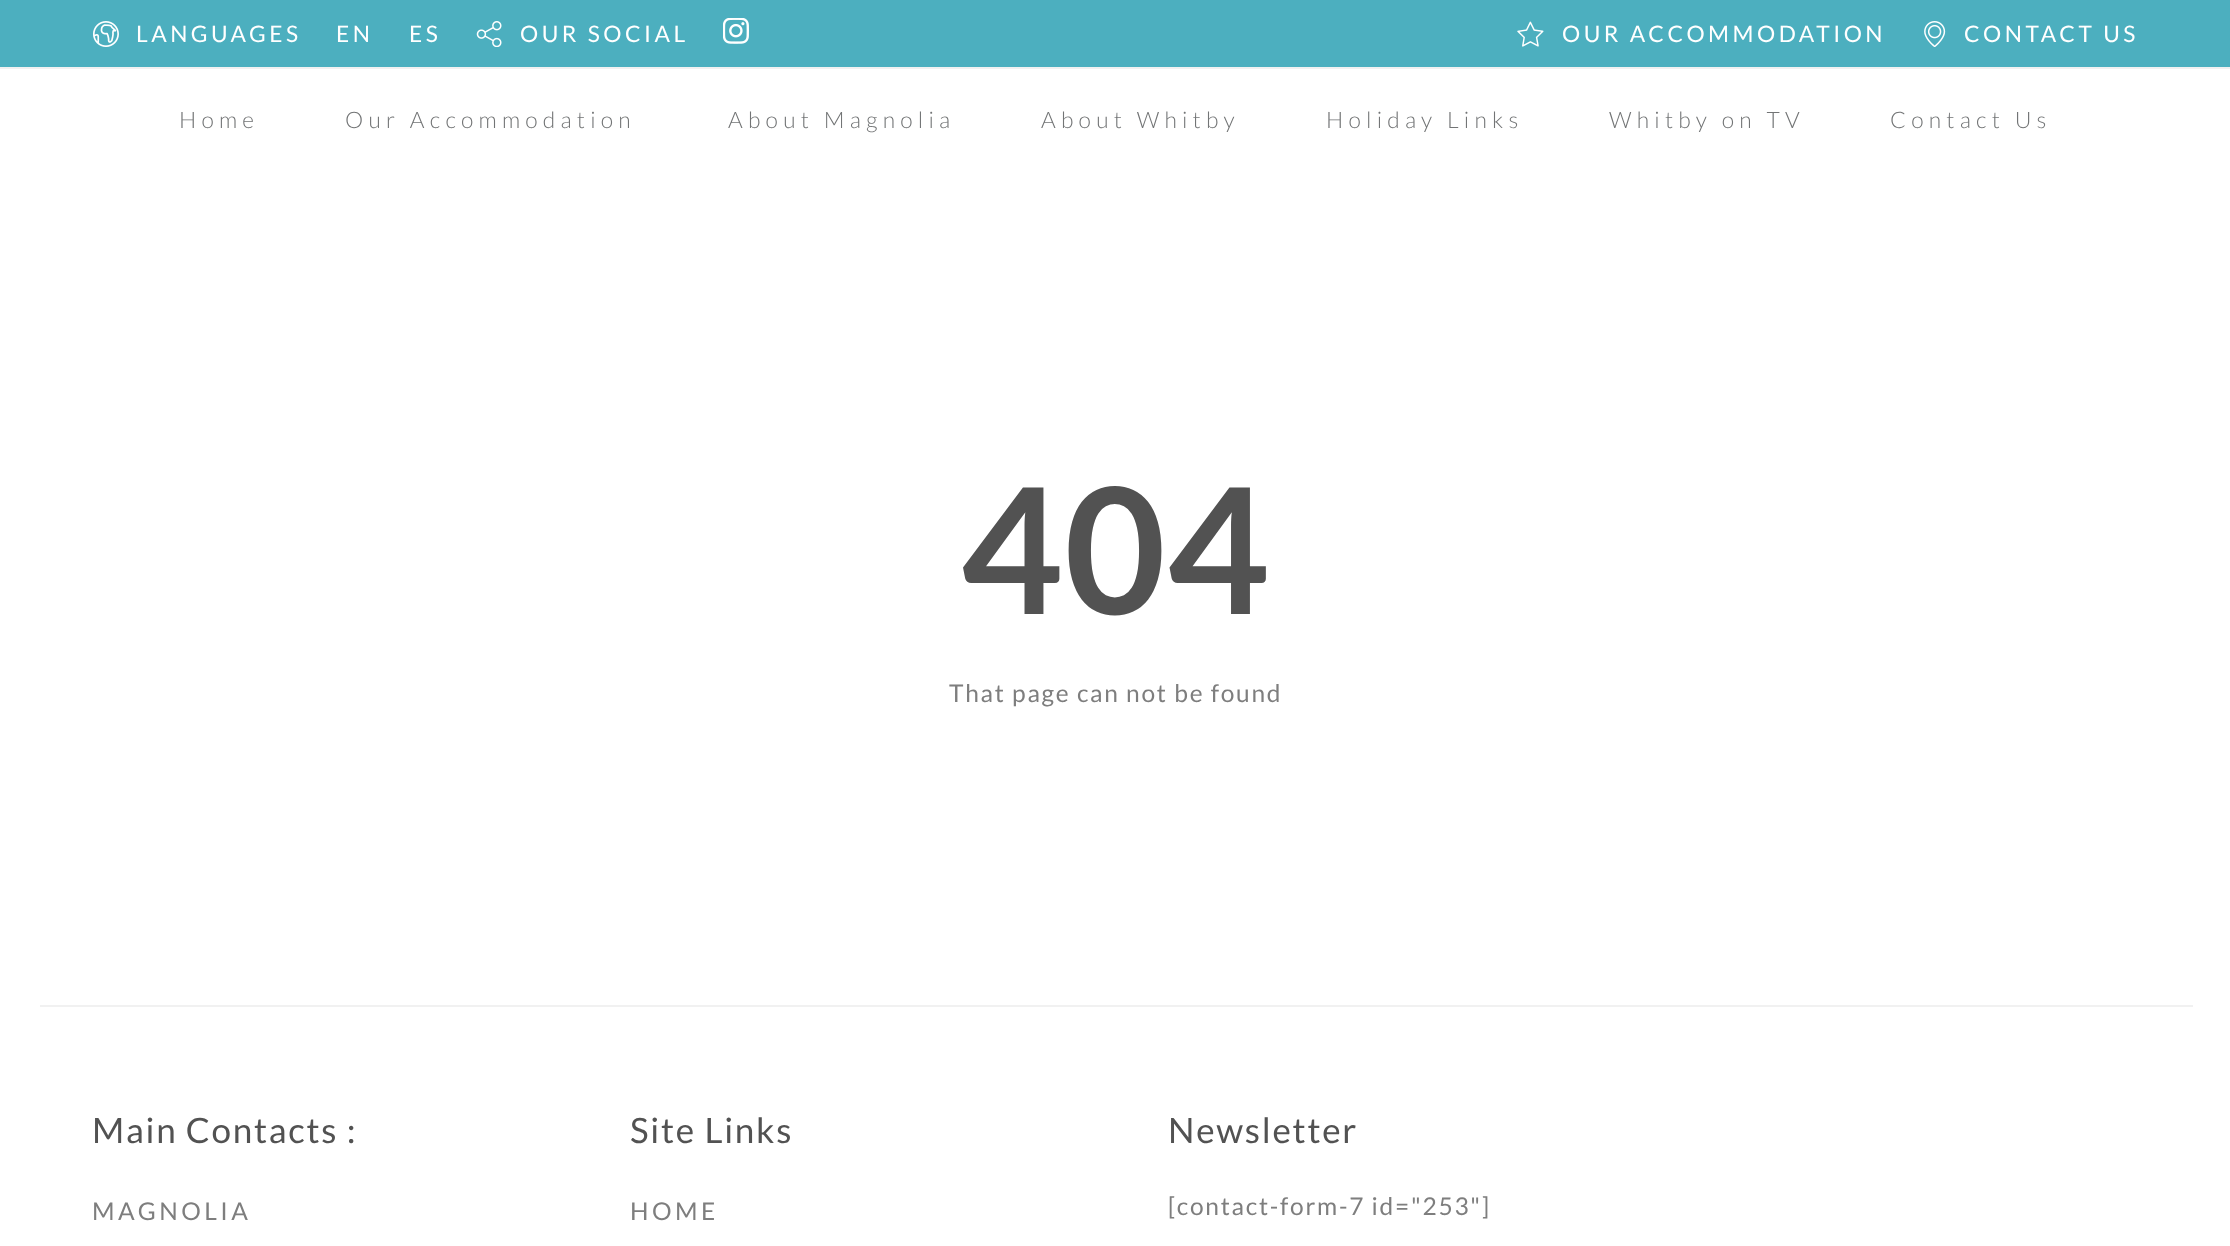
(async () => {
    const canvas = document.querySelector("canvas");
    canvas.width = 2230;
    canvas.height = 1246;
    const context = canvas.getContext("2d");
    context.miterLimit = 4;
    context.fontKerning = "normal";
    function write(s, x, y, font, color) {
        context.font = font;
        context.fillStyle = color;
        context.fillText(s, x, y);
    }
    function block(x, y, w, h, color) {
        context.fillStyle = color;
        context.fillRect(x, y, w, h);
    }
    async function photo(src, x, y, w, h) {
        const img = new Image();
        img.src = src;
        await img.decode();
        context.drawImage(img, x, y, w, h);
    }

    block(0, 0, 2230, 1246, "rgb(255, 255, 255)");
    block(0, 0, 2230, 67, "rgb(76, 175, 191)");
    await photo("media/1.png", 93, 21, 26, 26);
    context.letterSpacing = "3.5px";
    write("LANGUAGES", 136, 42, "22.75px Lato", "rgb(255, 255, 255)");
    write("EN", 336, 42, "22.75px Lato", "rgb(255, 255, 255)");
    write("ES", 409, 42, "22.75px Lato", "rgb(255, 255, 255)");
    await photo("media/2.png", 476, 21, 26, 26);
    write("OUR SOCIAL", 520, 42, "22.75px Lato", "rgb(255, 255, 255)");
    await photo("media/3.png", 723, 18, 26, 26);
    await photo("media/4.png", 1517, 21, 27, 26);
    write("OUR ACCOMMODATION", 1562, 42, "22.75px Lato", "rgb(255, 255, 255)");
    await photo("media/5.png", 1924, 21, 22, 26);
    write("CONTACT US", 1964, 42, "22.75px Lato", "rgb(255, 255, 255)");
    block(0, 67, 2230, 2, "rgb(241, 241, 241)");
    context.letterSpacing = "5.25px";
    write("Home", 179, 128, "300 22.75px Lato", "rgb(114, 116, 117)");
    write("Our Accommodation", 345, 128, "300 22.75px Lato", "rgb(114, 116, 117)");
    write("About Magnolia", 728, 128, "300 22.75px Lato", "rgb(114, 116, 117)");
    write("About Whitby", 1041, 128, "300 22.75px Lato", "rgb(114, 116, 117)");
    write("Holiday Links", 1326, 128, "300 22.75px Lato", "rgb(114, 116, 117)");
    write("Whitby on TV", 1609, 128, "300 22.75px Lato", "rgb(114, 116, 117)");
    write("Contact Us", 1890, 128, "300 22.75px Lato", "rgb(114, 116, 117)");
    context.letterSpacing = "1.75px";
    write("404", 961, 614, "bold 175px Lato", "rgb(82, 82, 82)");
    write("That page can not be found", 949, 702, "24.5px Lato", "rgb(126, 126, 126)");
    block(40, 1005, 2153, 2, "rgb(241, 241, 241)");
    write("Main Contacts :", 92, 1143, "35px Lato", "rgb(82, 82, 82)");
    context.letterSpacing = "3.5px";
    write("MAGNOLIA", 92, 1220, "24.5px Lato", "rgb(126, 126, 126)");
    context.letterSpacing = "1.75px";
    write("Site Links", 630, 1143, "35px Lato", "rgb(82, 82, 82)");
    context.letterSpacing = "3.5px";
    write("HOME", 630, 1220, "24.5px Lato", "rgb(126, 126, 126)");
    context.letterSpacing = "1.75px";
    write("Newsletter", 1168, 1143, "35px Lato", "rgb(82, 82, 82)");
    write("[contact-form-7 id=\"253\"]", 1168, 1215, "24.5px Lato", "rgb(126, 126, 126)");
})();
